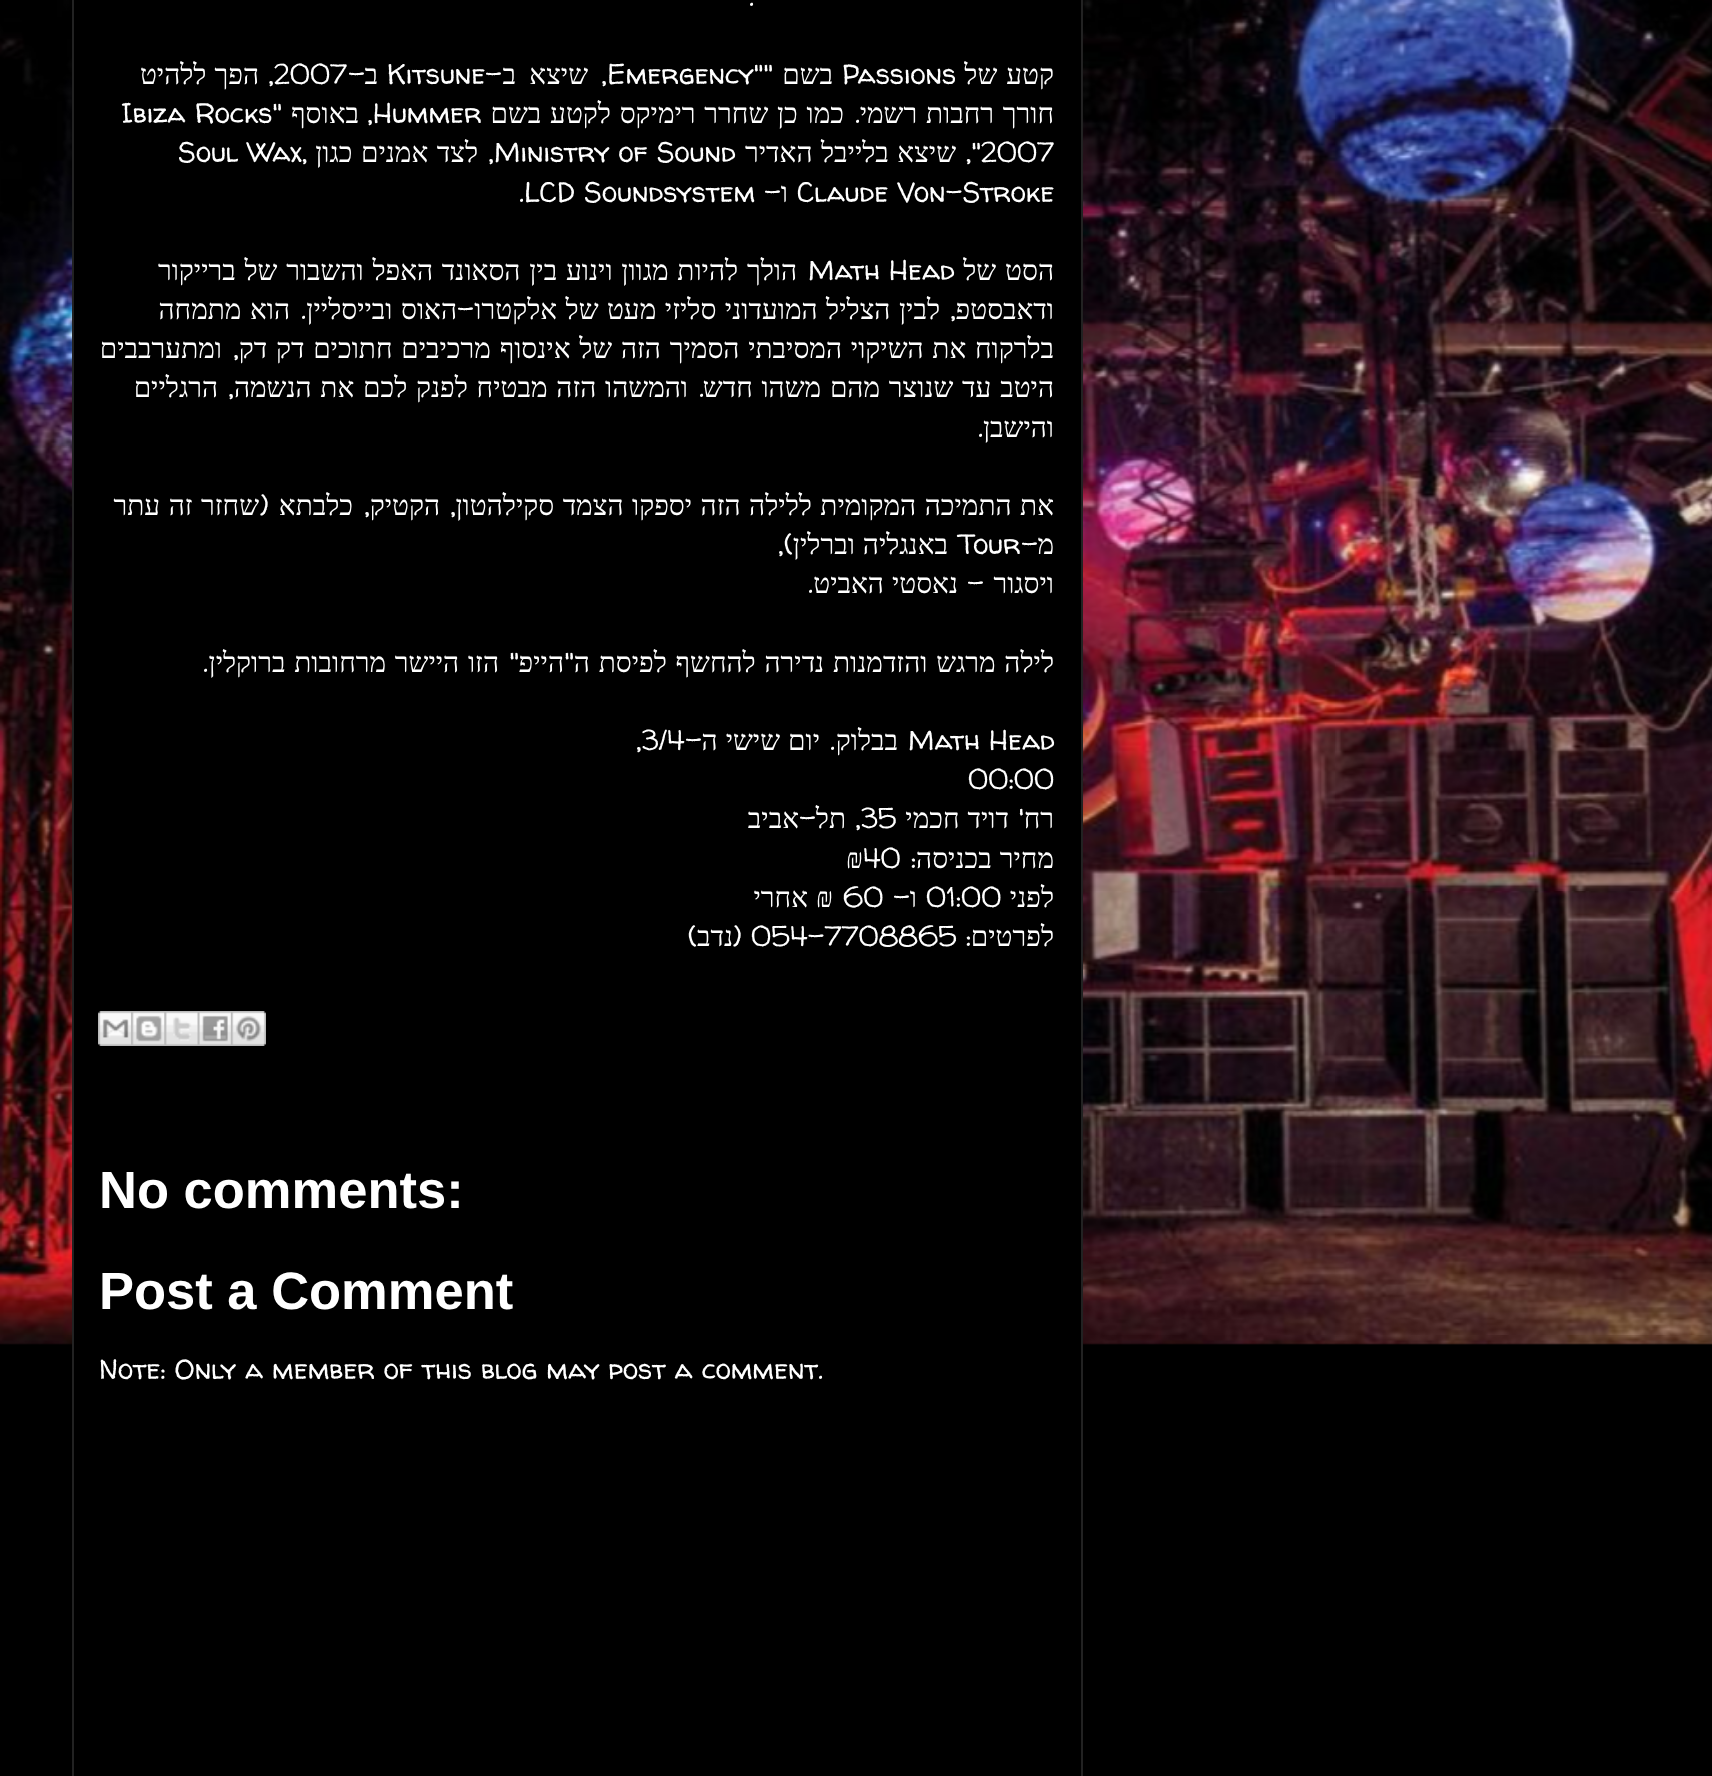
(async () => {
    const canvas = document.querySelector("canvas");
    canvas.width = 1712;
    canvas.height = 1776;
    const context = canvas.getContext("2d");
    context.miterLimit = 4;
    context.fontKerning = "normal";
    function write(s, x, y, font, color) {
        context.font = font;
        context.fillStyle = color;
        context.fillText(s, x, y);
    }
    function block(x, y, w, h, color) {
        context.fillStyle = color;
        context.fillRect(x, y, w, h);
    }
    async function photo(src, x, y, w, h) {
        const img = new Image();
        img.src = src;
        await img.decode();
        context.drawImage(img, x, y, w, h);
    }

    block(0, 0, 1712, 1776, "rgb(0, 0, 0)");
    await photo("media/1.png", 0, 0, 1712, 1345);
    block(74, 0, 1007, 1345, "rgb(0, 0, 0)");
    context.strokeStyle = "rgb(34, 34, 34)";
    context.lineWidth = 2;
    context.strokeRect(73, -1, 1009, 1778);
    write(".", 749, 6, "28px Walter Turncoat", "rgb(255, 255, 255)");
    context.wordSpacing = "2px";
    context.direction = "rtl";
    write("קטע של", 1054, 84, "28px Liberation Serif", "rgb(255, 255, 255)");
    context.wordSpacing = "0px";
    context.direction = "ltr";
    write("Passions", 842, 84, "28px Walter Turncoat", "rgb(255, 255, 255)");
    context.direction = "rtl";
    write("בשם", 833, 84, "28px Liberation Serif", "rgb(255, 255, 255)");
    write("\"\"", 773, 84, "28px Walter Turncoat", "rgb(255, 255, 255)");
    context.direction = "ltr";
    write("Emergency", 607, 84, "28px Walter Turncoat", "rgb(255, 255, 255)");
    context.direction = "rtl";
    write("שיצא", 588, 84, "28px Liberation Serif", "rgb(255, 255, 255)");
    write("ב", 516, 84, "28px Liberation Serif", "rgb(255, 255, 255)");
    write("-", 502, 84, "28px Walter Turncoat", "rgb(255, 255, 255)");
    context.direction = "ltr";
    write("Kitsune", 387, 84, "28px Walter Turncoat", "rgb(255, 255, 255)");
    context.direction = "rtl";
    write("ב", 378, 84, "28px Liberation Serif", "rgb(255, 255, 255)");
    write("-", 365, 84, "28px Walter Turncoat", "rgb(255, 255, 255)");
    context.direction = "ltr";
    write("2007", 274, 84, "28px Walter Turncoat", "rgb(255, 255, 255)");
    context.wordSpacing = "1px";
    context.direction = "rtl";
    write("הפך ללהיט", 259, 84, "28px Liberation Serif", "rgb(255, 255, 255)");
    context.wordSpacing = "0px";
    write(",", 607, 84, "28px Walter Turncoat", "rgb(255, 255, 255)");
    write(",", 274, 84, "28px Walter Turncoat", "rgb(255, 255, 255)");
    context.wordSpacing = "1.75px";
    write("חורך רחבות רשמי", 1054, 123, "28px Liberation Serif", "rgb(255, 255, 255)");
    context.wordSpacing = "0px";
    write(".", 860, 123, "28px Walter Turncoat", "rgb(255, 255, 255)");
    context.wordSpacing = "1.75px";
    write("כמו כן שחרר רימיקס לקטע בשם", 844, 123, "28px Liberation Serif", "rgb(255, 255, 255)");
    context.wordSpacing = "0px";
    context.direction = "ltr";
    write("Hummer", 373, 123, "28px Walter Turncoat", "rgb(255, 255, 255)");
    context.direction = "rtl";
    write(",", 373, 123, "28px Walter Turncoat", "rgb(255, 255, 255)");
    write("באוסף", 359, 123, "28px Liberation Serif", "rgb(255, 255, 255)");
    write("\"", 282, 123, "28px Walter Turncoat", "rgb(255, 255, 255)");
    context.direction = "ltr";
    write("Ibiza Rocks", 121, 123, "28px Walter Turncoat", "rgb(255, 255, 255)");
    write("2007", 981, 162, "28px Walter Turncoat", "rgb(255, 255, 255)");
    context.direction = "rtl";
    write("\",", 981, 162, "28px Walter Turncoat", "rgb(255, 255, 255)");
    context.wordSpacing = "1.5px";
    write("שיצא בלייבל האדיר", 956, 162, "28px Liberation Serif", "rgb(255, 255, 255)");
    context.wordSpacing = "0px";
    context.direction = "ltr";
    write("Ministry of Sound", 494, 162, "28px Walter Turncoat", "rgb(255, 255, 255)");
    context.direction = "rtl";
    write(",", 494, 162, "28px Walter Turncoat", "rgb(255, 255, 255)");
    context.wordSpacing = "1.5px";
    write("לצד אמנים כגון", 478, 162, "28px Liberation Serif", "rgb(255, 255, 255)");
    context.wordSpacing = "0px";
    context.direction = "ltr";
    write("Soul Wax,", 178, 162, "28px Walter Turncoat", "rgb(255, 255, 255)");
    write("Claude Von-Stroke", 797, 202, "28px Walter Turncoat", "rgb(255, 255, 255)");
    context.direction = "rtl";
    write("ו", 788, 202, "28px Liberation Serif", "rgb(255, 255, 255)");
    write("-", 781, 202, "28px Walter Turncoat", "rgb(255, 255, 255)");
    context.direction = "ltr";
    write(".LCD Soundsystem", 519, 202, "28px Walter Turncoat", "rgb(255, 255, 255)");
    context.wordSpacing = "2px";
    context.direction = "rtl";
    write("הסט של", 1054, 280, "28px Liberation Serif", "rgb(255, 255, 255)");
    context.wordSpacing = "0px";
    context.direction = "ltr";
    write("Math Head", 808, 280, "28px Walter Turncoat", "rgb(255, 255, 255)");
    context.wordSpacing = "1.75px";
    context.direction = "rtl";
    write("הולך להיות מגוון וינוע בין הסאונד האפל והשבור של ברייקור", 797, 280, "28px Liberation Serif", "rgb(255, 255, 255)");
    context.wordSpacing = "0px";
    write("ודאבסטפ", 1054, 319, "28px Liberation Serif", "rgb(255, 255, 255)");
    context.wordSpacing = "1.5px";
    write("לבין הצליל המועדוני סליזי מעט של אלקטרו", 940, 319, "28px Liberation Serif", "rgb(255, 255, 255)");
    context.wordSpacing = "0px";
    write("-", 474, 319, "28px Walter Turncoat", "rgb(255, 255, 255)");
    context.wordSpacing = "1.5px";
    write("האוס ובייסליין", 457, 319, "28px Liberation Serif", "rgb(255, 255, 255)");
    write("הוא מתמחה", 290, 319, "28px Liberation Serif", "rgb(255, 255, 255)");
    context.wordSpacing = "0px";
    write(",", 956, 319, "28px Walter Turncoat", "rgb(255, 255, 255)");
    write(".", 306, 319, "28px Walter Turncoat", "rgb(255, 255, 255)");
    context.wordSpacing = "1.75px";
    write("בלרקוח את השיקוי המסיבתי הסמיך הזה של אינסוף מרכיבים חתוכים דק דק", 1054, 358, "28px Liberation Serif", "rgb(255, 255, 255)");
    context.wordSpacing = "0px";
    write(",", 239, 358, "28px Walter Turncoat", "rgb(255, 255, 255)");
    write("ומתערבבים", 222, 358, "28px Liberation Serif", "rgb(255, 255, 255)");
    context.wordSpacing = "1.75px";
    write("היטב עד שנוצר מהם משהו חדש", 1054, 397, "28px Liberation Serif", "rgb(255, 255, 255)");
    context.wordSpacing = "0px";
    write(".", 704, 397, "28px Walter Turncoat", "rgb(255, 255, 255)");
    context.wordSpacing = "1.75px";
    write("והמשהו הזה מבטיח לפנק לכם את הנשמה", 688, 397, "28px Liberation Serif", "rgb(255, 255, 255)");
    context.wordSpacing = "0px";
    write(",", 234, 397, "28px Walter Turncoat", "rgb(255, 255, 255)");
    write("הרגליים", 218, 397, "28px Liberation Serif", "rgb(255, 255, 255)");
    write("והישבן", 1054, 437, "28px Liberation Serif", "rgb(255, 255, 255)");
    write(".", 983, 437, "28px Walter Turncoat", "rgb(255, 255, 255)");
    context.wordSpacing = "1.5px";
    write("את התמיכה המקומית ללילה הזה יספקו הצמד סקילהטון", 1054, 515, "28px Liberation Serif", "rgb(255, 255, 255)");
    context.wordSpacing = "0px";
    write(",", 456, 515, "28px Walter Turncoat", "rgb(255, 255, 255)");
    write("הקטיק", 440, 515, "28px Liberation Serif", "rgb(255, 255, 255)");
    write(",", 370, 515, "28px Walter Turncoat", "rgb(255, 255, 255)");
    write("כלבתא", 353, 515, "28px Liberation Serif", "rgb(255, 255, 255)");
    write("(", 269, 515, "28px Walter Turncoat", "rgb(255, 255, 255)");
    context.wordSpacing = "1.5px";
    write("שחזר זה עתר", 259, 515, "28px Liberation Serif", "rgb(255, 255, 255)");
    context.wordSpacing = "0px";
    write("מ", 1054, 554, "28px Liberation Serif", "rgb(255, 255, 255)");
    write("-", 1038, 554, "28px Walter Turncoat", "rgb(255, 255, 255)");
    context.direction = "ltr";
    write("Tour", 958, 554, "28px Walter Turncoat", "rgb(255, 255, 255)");
    context.wordSpacing = "1px";
    context.direction = "rtl";
    write("באנגליה וברלין", 948, 554, "28px Liberation Serif", "rgb(255, 255, 255)");
    context.wordSpacing = "0px";
    write("),", 793, 554, "28px Walter Turncoat", "rgb(255, 255, 255)");
    write("ויסגור", 1054, 593, "28px Liberation Serif", "rgb(255, 255, 255)");
    write("-", 984, 593, "28px Walter Turncoat", "rgb(255, 255, 255)");
    context.wordSpacing = "1px";
    write("נאסטי האביט", 958, 593, "28px Liberation Serif", "rgb(255, 255, 255)");
    context.wordSpacing = "0px";
    write(".", 813, 593, "28px Walter Turncoat", "rgb(255, 255, 255)");
    context.wordSpacing = "1.75px";
    write("לילה מרגש והזדמנות נדירה להחשף לפיסת ה", 1054, 672, "28px Liberation Serif", "rgb(255, 255, 255)");
    context.wordSpacing = "0px";
    write("\"", 574, 672, "28px Walter Turncoat", "rgb(255, 255, 255)");
    write("הייפ", 564, 672, "28px Liberation Serif", "rgb(255, 255, 255)");
    write("\"", 519, 672, "28px Walter Turncoat", "rgb(255, 255, 255)");
    context.wordSpacing = "1.75px";
    write("הזו היישר מרחובות ברוקלין", 499, 672, "28px Liberation Serif", "rgb(255, 255, 255)");
    context.wordSpacing = "0px";
    write(".", 208, 672, "28px Walter Turncoat", "rgb(255, 255, 255)");
    context.direction = "ltr";
    write("Math Head", 908, 750, "28px Walter Turncoat", "rgb(255, 255, 255)");
    context.direction = "rtl";
    write("בבלוק", 898, 750, "28px Liberation Serif", "rgb(255, 255, 255)");
    context.wordSpacing = "1px";
    write("יום שישי ה", 820, 750, "28px Liberation Serif", "rgb(255, 255, 255)");
    context.wordSpacing = "0px";
    write("-", 702, 750, "28px Walter Turncoat", "rgb(255, 255, 255)");
    context.direction = "ltr";
    write(",3/4", 636, 750, "28px Walter Turncoat", "rgb(255, 255, 255)");
    context.direction = "rtl";
    write(".", 835, 750, "28px Walter Turncoat", "rgb(255, 255, 255)");
    context.direction = "ltr";
    write("00:00", 968, 789, "28px Walter Turncoat", "rgb(255, 255, 255)");
    context.direction = "rtl";
    write("רח", 1054, 828, "28px Liberation Serif", "rgb(255, 255, 255)");
    write("'", 1024, 828, "28px Walter Turncoat", "rgb(255, 255, 255)");
    context.wordSpacing = "1px";
    write("דויד חכמי", 1009, 828, "28px Liberation Serif", "rgb(255, 255, 255)");
    context.wordSpacing = "0px";
    context.direction = "ltr";
    write("35", 861, 828, "28px Walter Turncoat", "rgb(255, 255, 255)");
    context.direction = "rtl";
    write("תל", 846, 828, "28px Liberation Serif", "rgb(255, 255, 255)");
    write("-", 816, 828, "28px Walter Turncoat", "rgb(255, 255, 255)");
    write("אביב", 799, 828, "28px Liberation Serif", "rgb(255, 255, 255)");
    write(",", 861, 828, "28px Walter Turncoat", "rgb(255, 255, 255)");
    context.wordSpacing = "1px";
    write("מחיר בכניסה", 1054, 868, "28px Liberation Serif", "rgb(255, 255, 255)");
    context.wordSpacing = "0px";
    write(":", 916, 868, "28px Walter Turncoat", "rgb(255, 255, 255)");
    context.direction = "ltr";
    write("40", 863, 868, "28px Walter Turncoat", "rgb(255, 255, 255)");
    write("₪", 846, 868, "28px Liberation Serif", "rgb(255, 255, 255)");
    context.direction = "rtl";
    write("לפני", 1054, 907, "28px Liberation Serif", "rgb(255, 255, 255)");
    context.direction = "ltr";
    write("01:00", 926, 907, "28px Walter Turncoat", "rgb(255, 255, 255)");
    context.direction = "rtl";
    write("ו", 917, 907, "28px Liberation Serif", "rgb(255, 255, 255)");
    write("-", 910, 907, "28px Walter Turncoat", "rgb(255, 255, 255)");
    context.direction = "ltr";
    write("60", 843, 907, "28px Walter Turncoat", "rgb(255, 255, 255)");
    context.wordSpacing = "1px";
    context.direction = "rtl";
    write("₪ אחרי", 833, 907, "28px Liberation Serif", "rgb(255, 255, 255)");
    context.wordSpacing = "0px";
    write("לפרטים", 1054, 946, "28px Liberation Serif", "rgb(255, 255, 255)");
    write(":", 971, 946, "28px Walter Turncoat", "rgb(255, 255, 255)");
    context.direction = "ltr";
    write("054-7708865", 751, 946, "28px Walter Turncoat", "rgb(255, 255, 255)");
    context.direction = "rtl";
    write("(", 742, 946, "28px Walter Turncoat", "rgb(255, 255, 255)");
    write("נדב", 733, 946, "28px Liberation Serif", "rgb(255, 255, 255)");
    write(")", 697, 946, "28px Walter Turncoat", "rgb(255, 255, 255)");
    await photo("media/2.png", 231, 1011, 35, 35);
    await photo("media/6.png", 98, 1011, 34, 35);
    await photo("media/5.png", 131, 1011, 34, 35);
    await photo("media/4.png", 164, 1011, 34, 35);
    await photo("media/3.png", 197, 1011, 34, 35);
    context.direction = "ltr";
    write("No comments:", 99, 1208, "bold 52.5px Liberation Sans", "rgb(255, 255, 255)");
    write("Post a Comment", 99, 1309, "bold 52.5px Liberation Sans", "rgb(255, 255, 255)");
    write("Note: Only a member of this blog may post a comment.", 99, 1379, "28px Walter Turncoat", "rgb(255, 255, 255)");
})();
